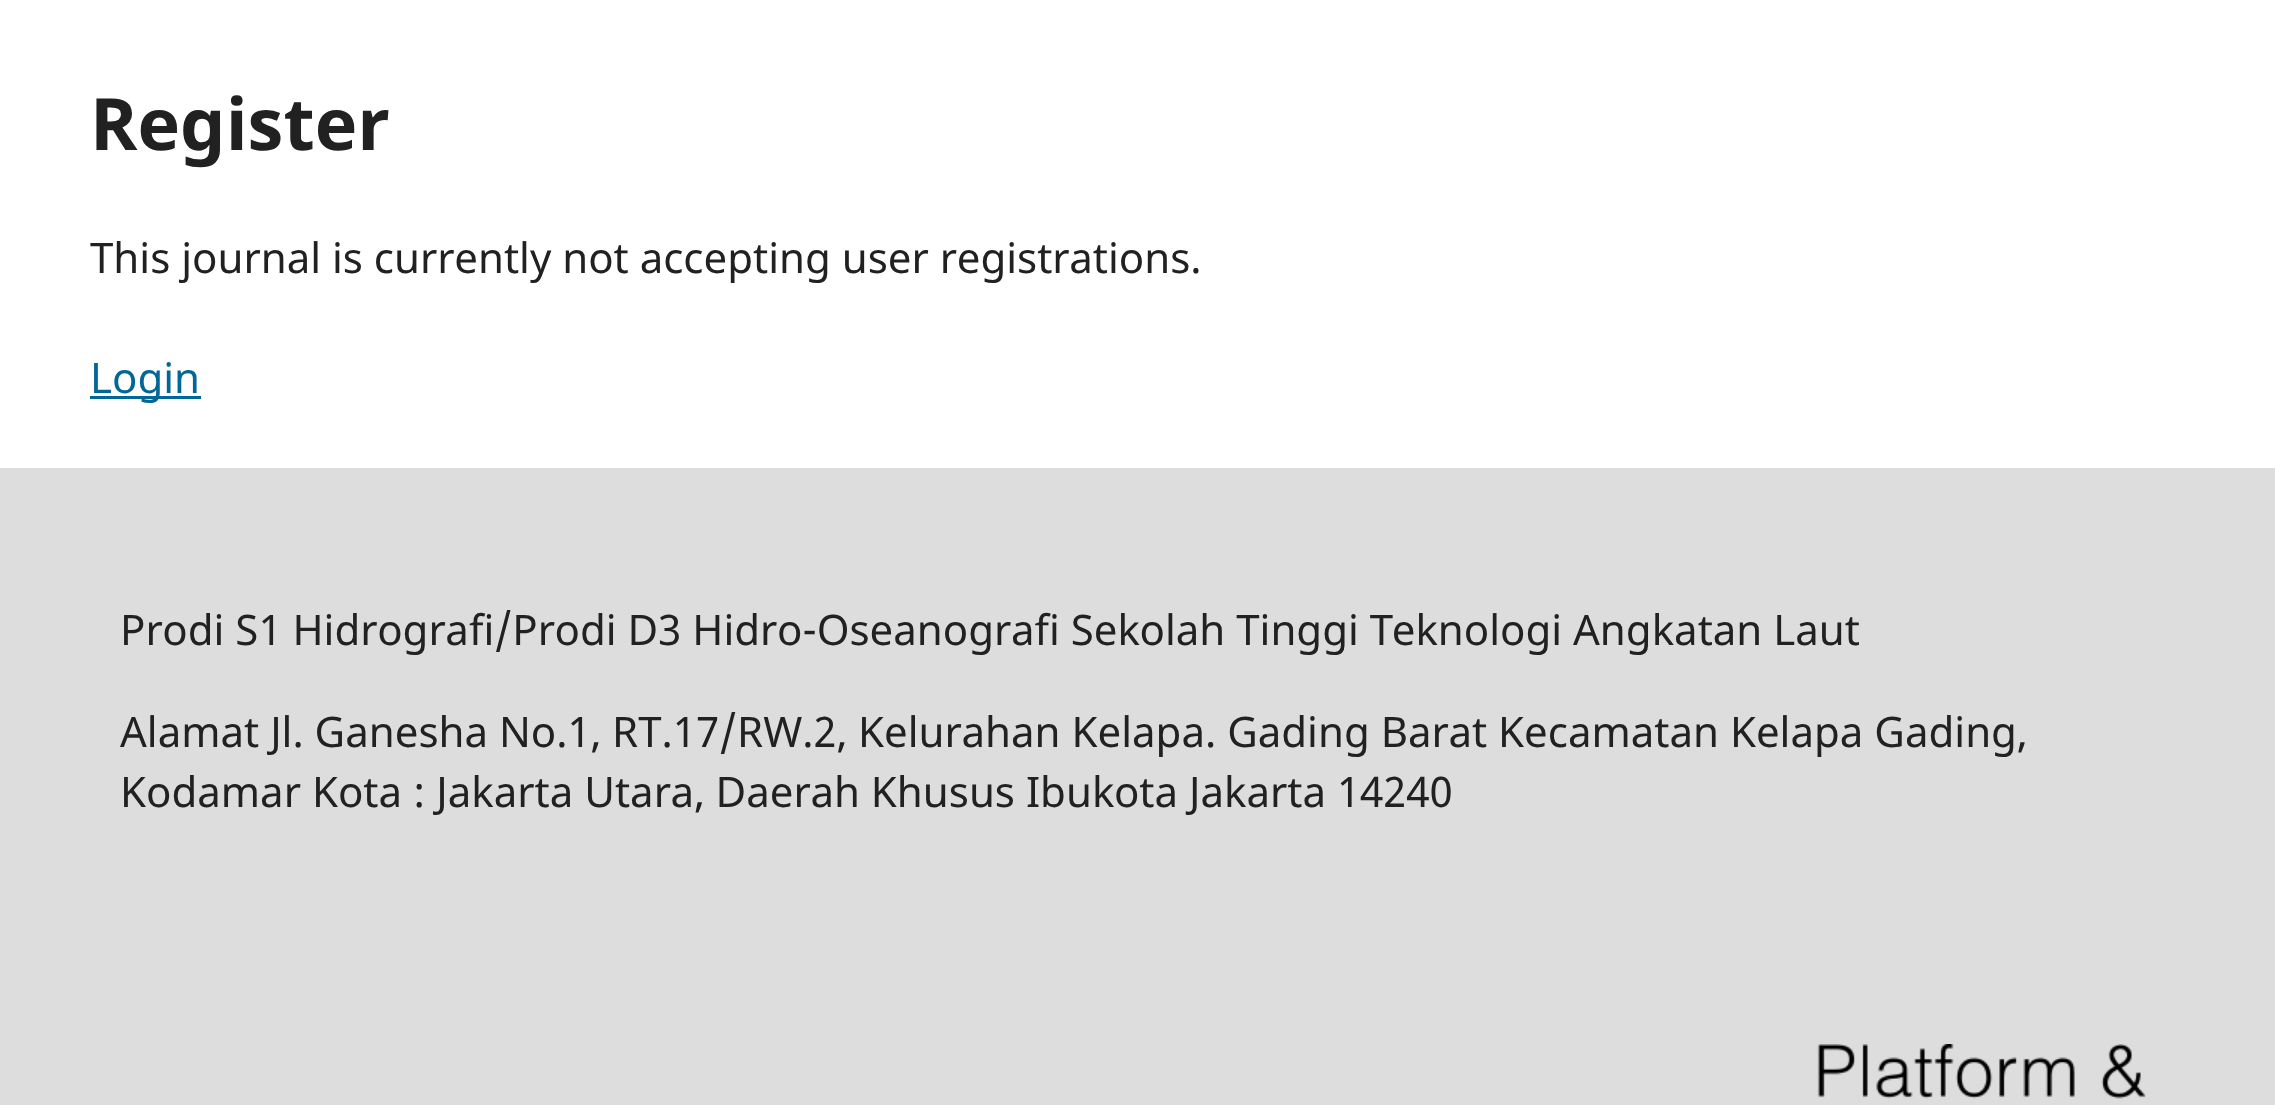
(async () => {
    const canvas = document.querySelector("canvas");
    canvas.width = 2275;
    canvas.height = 1105;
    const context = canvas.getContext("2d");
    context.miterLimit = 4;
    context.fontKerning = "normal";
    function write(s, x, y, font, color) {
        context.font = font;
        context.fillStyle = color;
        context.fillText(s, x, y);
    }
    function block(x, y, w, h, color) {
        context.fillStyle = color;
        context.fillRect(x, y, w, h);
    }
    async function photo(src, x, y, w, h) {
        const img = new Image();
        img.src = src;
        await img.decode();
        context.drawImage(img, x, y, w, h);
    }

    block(0, 0, 2275, 1105, "rgb(255, 255, 255)");
    write("Register", 90, 150, "bold 72px Noto Sans", "rgb(33, 33, 33)");
    write("This journal is currently not accepting user registrations.", 90, 273, "42px Noto Sans", "rgb(33, 33, 33)");
    block(90, 396, 111, 3, "rgb(0, 103, 152)");
    write("Login", 90, 393, "42px Noto Sans", "rgb(0, 103, 152)");
    block(0, 468, 2275, 637, "rgb(221, 221, 221)");
    write("Prodi S1 Hidrografi/Prodi D3 Hidro-Oseanografi Sekolah Tinggi Teknologi Angkatan Laut", 120, 645, "42px Noto Sans", "rgb(33, 33, 33)");
    write("Alamat Jl. Ganesha No.1, RT.17/RW.2, Kelurahan Kelapa. Gading Barat Kecamatan Kelapa Gading,", 120, 747, "42px Noto Sans", "rgb(33, 33, 33)");
    write("Kodamar Kota : Jakarta Utara, Daerah Khusus Ibukota Jakarta 14240", 120, 807, "42px Noto Sans", "rgb(33, 33, 33)");
    await photo("media/1.png", 1817, 1044, 329, 55);
})();
